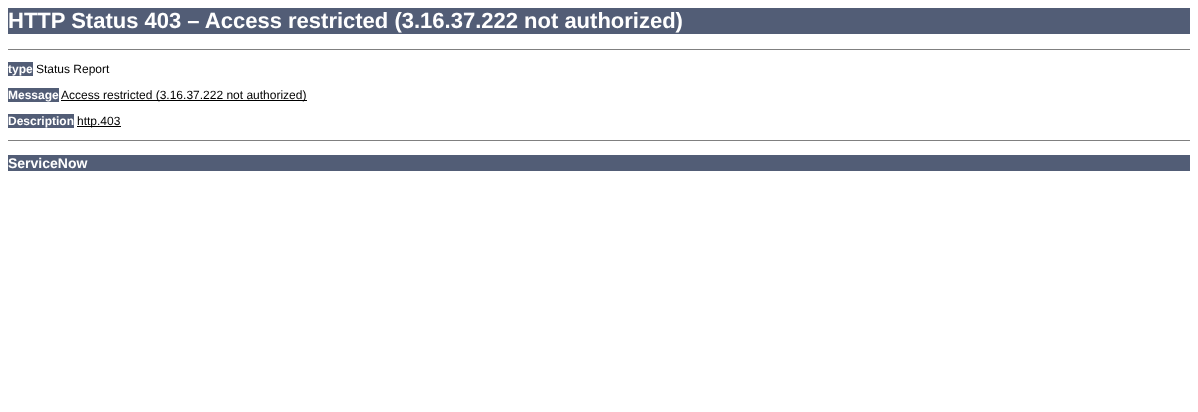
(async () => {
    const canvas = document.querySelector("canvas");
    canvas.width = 1198;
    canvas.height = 412;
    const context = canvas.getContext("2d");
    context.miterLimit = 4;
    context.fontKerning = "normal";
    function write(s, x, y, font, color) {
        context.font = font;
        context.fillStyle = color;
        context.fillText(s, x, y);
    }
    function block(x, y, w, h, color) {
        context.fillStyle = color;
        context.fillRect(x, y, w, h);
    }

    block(0, 0, 1198, 412, "rgb(255, 255, 255)");
    block(8, 8, 1182, 26, "rgb(82, 93, 118)");
    write("HTTP Status 403 – Access restricted (3.16.37.222 not authorized)", 8, 28, "bold 22px Liberation Sans", "rgb(255, 255, 255)");
    block(8, 49, 1182, 1, "rgb(128, 128, 128)");
    block(8, 62, 25, 14, "rgb(82, 93, 118)");
    write("type", 8, 73, "bold 12px Liberation Sans", "rgb(255, 255, 255)");
    write("Status Report", 36, 73, "12px Liberation Sans", "rgb(0, 0, 0)");
    block(8, 88, 51, 14, "rgb(82, 93, 118)");
    write("Message", 8, 99, "bold 12px Liberation Sans", "rgb(255, 255, 255)");
    block(61, 100, 246, 1, "rgb(0, 0, 0)");
    write("Access restricted (3.16.37.222 not authorized)", 61, 99, "12px Liberation Sans", "rgb(0, 0, 0)");
    block(8, 114, 66, 14, "rgb(82, 93, 118)");
    write("Description", 8, 125, "bold 12px Liberation Sans", "rgb(255, 255, 255)");
    block(77, 126, 44, 1, "rgb(0, 0, 0)");
    write("http.403", 77, 125, "12px Liberation Sans", "rgb(0, 0, 0)");
    block(8, 140, 1182, 1, "rgb(128, 128, 128)");
    block(8, 155, 1182, 16, "rgb(82, 93, 118)");
    write("ServiceNow", 8, 168, "bold 14px Liberation Sans", "rgb(255, 255, 255)");
})();
